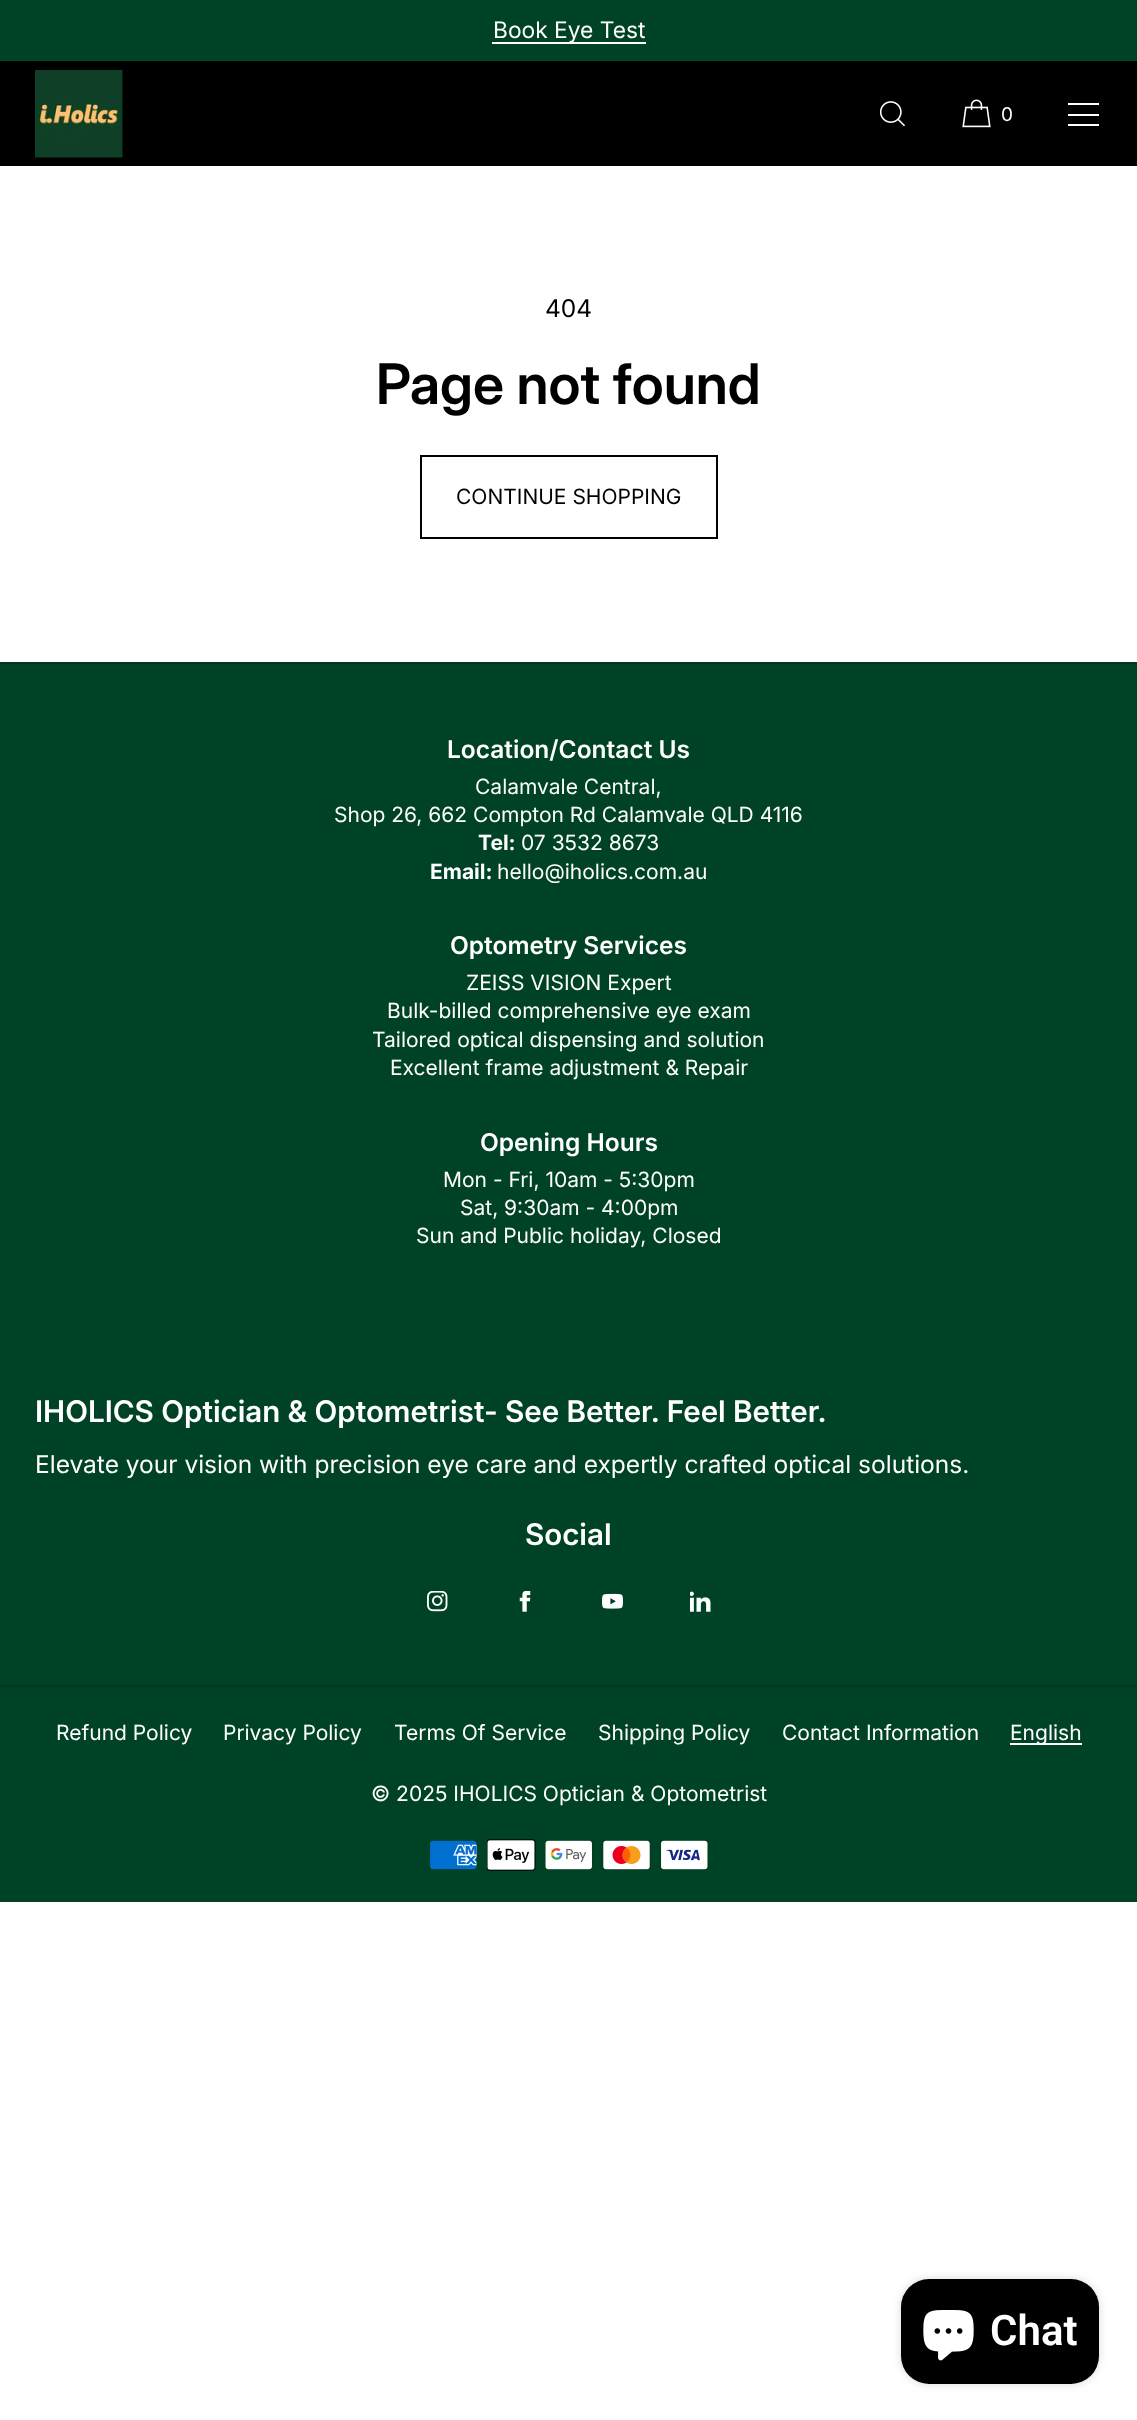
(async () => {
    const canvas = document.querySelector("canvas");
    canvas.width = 1137;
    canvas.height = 2420;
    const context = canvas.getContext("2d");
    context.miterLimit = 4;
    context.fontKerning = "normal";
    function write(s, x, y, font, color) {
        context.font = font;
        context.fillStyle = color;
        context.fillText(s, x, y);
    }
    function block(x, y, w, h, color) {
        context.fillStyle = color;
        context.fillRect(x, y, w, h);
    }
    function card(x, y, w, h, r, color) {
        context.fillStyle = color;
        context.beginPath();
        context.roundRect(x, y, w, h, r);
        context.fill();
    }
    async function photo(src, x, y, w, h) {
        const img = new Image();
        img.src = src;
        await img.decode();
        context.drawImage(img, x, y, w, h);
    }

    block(0, 0, 1137, 2420, "rgb(255, 255, 255)");
    block(0, 0, 1137, 61, "rgb(0, 66, 37)");
    block(492, 42, 154, 2, "rgb(255, 255, 255)");
    write("Book Eye Test", 493, 38, "22.75px Inter", "rgb(255, 255, 255)");
    block(0, 61, 1137, 105, "rgb(0, 0, 0)");
    await photo("media/1.png", 35, 70, 88, 88);
    await photo("media/2.png", 879, 101, 26, 26);
    await photo("media/3.png", 962, 99, 29, 29);
    write("0", 1001, 121, "19px Inter", "rgb(255, 255, 255)");
    block(1068, 103, 31, 2, "rgb(255, 255, 255)");
    block(1068, 114, 31, 2, "rgb(255, 255, 255)");
    block(1068, 124, 31, 2, "rgb(255, 255, 255)");
    write("404", 545, 317, "24.5px Inter", "rgb(0, 0, 0)");
    write("Page not found", 376, 404, "600 56px Inter", "rgb(0, 0, 0)");
    context.strokeStyle = "rgb(0, 0, 0)";
    context.lineWidth = 2;
    context.strokeRect(421, 456, 296, 82);
    write("CONTINUE SHOPPING", 456, 504, "21px Inter", "rgb(0, 0, 0)");
    block(0, 662, 1137, 2, "rgb(0, 53, 30)");
    block(0, 664, 1137, 1238, "rgb(0, 66, 37)");
    write("Location/Contact Us", 447, 758, "600 24.5px 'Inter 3'", "rgb(255, 255, 255)");
    write("Calamvale Central,", 475, 794, "21px Inter", "rgb(255, 255, 255)");
    write("Shop 26, 662 Compton Rd Calamvale QLD 4116", 334, 822, "21px Inter", "rgb(255, 255, 255)");
    write("Tel:", 478, 850, "bold 21px Inter", "rgb(255, 255, 255)");
    write("07 3532 8673", 521, 850, "21px Inter", "rgb(255, 255, 255)");
    write("Email:", 430, 879, "bold 21px Inter", "rgb(255, 255, 255)");
    write("hello@iholics.com.au", 497, 879, "21px Inter", "rgb(255, 255, 255)");
    write("Optometry Services", 450, 954, "600 24.5px 'Inter 3'", "rgb(255, 255, 255)");
    write("ZEISS VISION Expert", 466, 990, "21px Inter", "rgb(255, 255, 255)");
    write("Bulk-billed comprehensive eye exam", 387, 1018, "21px Inter", "rgb(255, 255, 255)");
    write("Tailored optical dispensing and solution", 372, 1047, "21px Inter", "rgb(255, 255, 255)");
    write("Excellent frame adjustment & Repair", 390, 1075, "21px Inter", "rgb(255, 255, 255)");
    write("Opening Hours", 480, 1151, "600 24.5px 'Inter 3'", "rgb(255, 255, 255)");
    write("Mon - Fri, 10am - 5:30pm", 443, 1187, "21px Inter", "rgb(255, 255, 255)");
    write("Sat, 9:30am - 4:00pm", 460, 1215, "21px Inter", "rgb(255, 255, 255)");
    write("Sun and Public holiday, Closed", 416, 1243, "21px Inter", "rgb(255, 255, 255)");
    write("IHOLICS Optician & Optometrist- See Better. Feel Better.", 35, 1422, "600 29.75px 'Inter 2'", "rgb(255, 255, 255)");
    write("Elevate your vision with precision eye care and expertly crafted optical solutions.", 35, 1473, "24.5px Inter", "rgb(255, 255, 255)");
    write("Social", 525, 1545, "600 29.75px 'Inter 2'", "rgb(255, 255, 255)");
    await photo("media/4.png", 427, 1591, 21, 21);
    await photo("media/5.png", 519, 1591, 12, 21);
    await photo("media/6.png", 602, 1593, 21, 16);
    await photo("media/7.png", 690, 1591, 21, 21);
    block(0, 1685, 1137, 2, "rgb(0, 56, 31)");
    write("Refund Policy", 56, 1740, "21px Inter", "rgb(255, 255, 255)");
    write("Privacy Policy", 223, 1740, "21px Inter", "rgb(255, 255, 255)");
    write("Terms Of Service", 394, 1740, "21px Inter", "rgb(255, 255, 255)");
    write("Shipping Policy", 598, 1740, "21px Inter", "rgb(255, 255, 255)");
    write("Contact Information", 782, 1740, "21px Inter", "rgb(255, 255, 255)");
    block(1010, 1743, 72, 2, "rgb(255, 255, 255)");
    write("English", 1010, 1740, "21px Inter", "rgb(255, 255, 255)");
    write("© 2025 IHOLICS Optician & Optometrist", 371, 1801, "21px Inter", "rgb(255, 255, 255)");
    await photo("media/8.png", 429, 1840, 48, 30);
    await photo("media/9.png", 487, 1839, 49, 32);
    await photo("media/10.png", 545, 1840, 48, 30);
    await photo("media/11.png", 602, 1840, 49, 30);
    await photo("media/12.png", 660, 1840, 48, 30);
    context.fillStyle = "rgba(0, 0, 0, 0.15)";
    context.filter = "blur(4.5px)";
    context.beginPath();
    context.roundRect(901, 2279, 198, 105, 28);
    context.fill();
    context.filter = "none";
    card(901, 2279, 198, 105, 28, "rgb(0, 0, 0)");
    await photo("media/13.png", 923, 2310, 51, 51);
    write("Chat", 990, 2345, "600 42px Roboto", "rgb(255, 255, 255)");
})();
